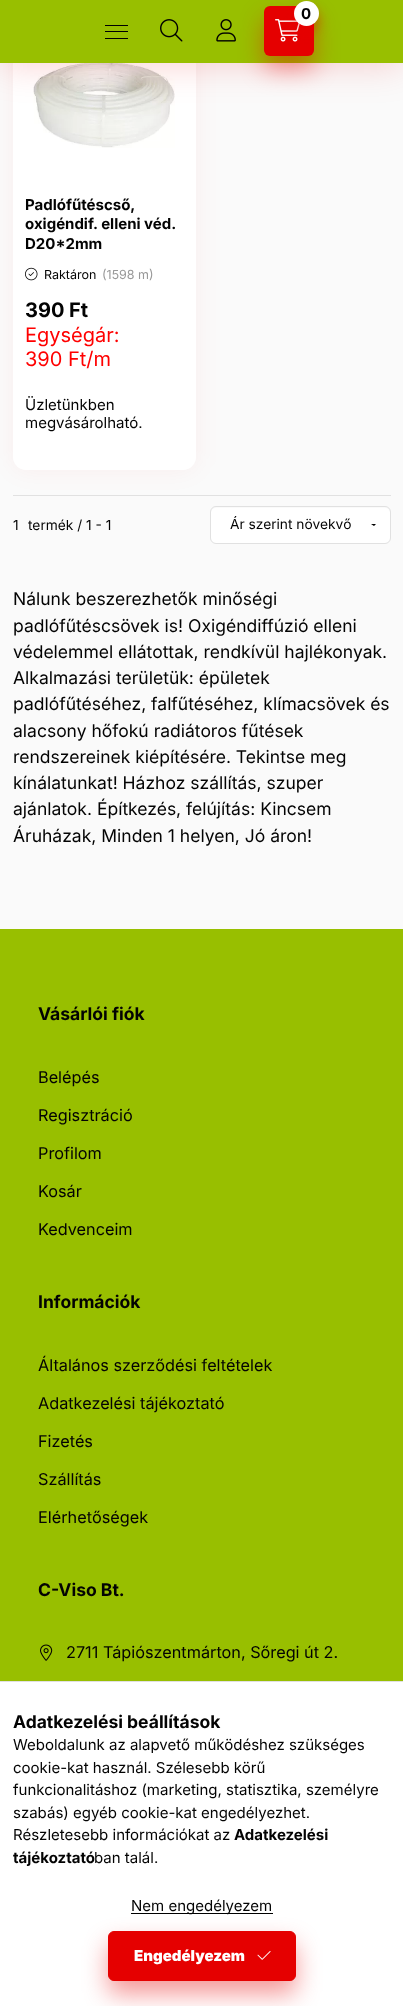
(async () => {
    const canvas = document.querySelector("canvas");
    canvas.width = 403;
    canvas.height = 2006;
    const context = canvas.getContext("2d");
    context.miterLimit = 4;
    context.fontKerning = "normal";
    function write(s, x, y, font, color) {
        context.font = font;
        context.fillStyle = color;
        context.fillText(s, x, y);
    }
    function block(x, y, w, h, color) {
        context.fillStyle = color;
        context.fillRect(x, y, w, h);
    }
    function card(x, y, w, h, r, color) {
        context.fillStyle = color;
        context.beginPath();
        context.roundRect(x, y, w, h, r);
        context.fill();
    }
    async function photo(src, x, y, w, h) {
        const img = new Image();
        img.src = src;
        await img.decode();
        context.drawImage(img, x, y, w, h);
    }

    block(0, 0, 403, 2006, "rgb(250, 250, 250)");
    block(13, 495, 378, 1, "rgb(225, 225, 225)");
    context.fillStyle = "rgba(229, 0, 0, 0.05)";
    context.filter = "blur(12.5px)";
    context.beginPath();
    context.roundRect(13, -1, 183, 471, 13);
    context.fill();
    context.filter = "none";
    card(13, -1, 183, 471, 13, "rgb(255, 255, 255)");
    await photo("media/4.png", 33, 63, 142, 85);
    context.fillStyle = "rgba(229, 0, 0, 0.2)";
    context.filter = "blur(19px)";
    context.beginPath();
    context.rect(0, 0, 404, 63);
    context.fill();
    context.filter = "none";
    block(0, 0, 403, 63, "rgb(152, 191, 0)");
    await photo("media/3.png", 216, 19, 20, 23);
    context.fillStyle = "rgba(229, 0, 0, 0.4)";
    context.filter = "blur(12.5px)";
    context.beginPath();
    context.roundRect(264, 19, 50, 50, 6);
    context.fill();
    context.filter = "none";
    card(264, 6, 50, 50, 6, "rgb(229, 0, 0)");
    await photo("media/1.png", 275, 19, 25, 23);
    context.fillStyle = "rgba(229, 0, 0, 0.4)";
    context.filter = "blur(6px)";
    context.beginPath();
    context.roundRect(294, 8, 25, 25, 12.5);
    context.fill();
    context.filter = "none";
    context.fillStyle = "rgb(255, 255, 255)";
    context.beginPath();
    context.arc(306.5, 13.5, 12.5, 0, Math.PI * 2);
    context.fill();
    write("0", 301, 19, "bold 15px Inter", "rgb(3, 3, 3)");
    block(105, 25, 23, 1, "rgb(0, 0, 0)");
    block(105, 31, 23, 1, "rgb(0, 0, 0)");
    block(105, 38, 23, 1, "rgb(0, 0, 0)");
    await photo("media/2.png", 160, 19, 23, 23);
    write("Padlófűtéscső,", 25, 210, "bold 15px Inter", "rgb(3, 3, 3)");
    write("oxigéndif. elleni véd.", 25, 229, "bold 15px Inter", "rgb(3, 3, 3)");
    write("D20*2mm", 25, 249, "bold 15px Inter", "rgb(3, 3, 3)");
    await photo("media/5.png", 25, 267, 13, 14);
    write("Raktáron", 44, 279, "12.5px Inter", "rgb(3, 3, 3)");
    write("(1598 m)", 102, 279, "12.5px Inter", "rgb(153, 153, 153)");
    write("390 Ft", 25, 317, "bold 20px Inter", "rgb(3, 3, 3)");
    write("Egységár:", 25, 342, "20px Inter", "rgb(255, 0, 0)");
    write("390 Ft/m", 25, 366, "20px Inter", "rgb(255, 0, 0)");
    write("Üzletünkben", 25, 410, "15px Inter", "rgb(3, 3, 3)");
    write("megvásárolható.", 25, 428, "15px Inter", "rgb(3, 3, 3)");
    write("1", 13, 530, "13.75px Inter", "rgb(3, 3, 3)");
    write("termék / 1 - 1", 28, 530, "13.75px Inter", "rgb(3, 3, 3)");
    card(211, 508, 179, 35, 5, "rgb(255, 255, 255)");
    context.beginPath();
    context.roundRect(210.5, 506.5, 180, 37, 5.5);
    context.strokeStyle = "rgb(225, 225, 225)";
    context.stroke();
    write("Ár szerint növekvő", 230, 529, "13.75px Inter", "rgb(3, 3, 3)");
    context.fillStyle = "rgb(0, 0, 0)";
    context.beginPath();
    context.moveTo(371, 524);
    context.lineTo(376, 524);
    context.lineTo(374, 526);
    context.closePath();
    context.fill();
    write("Nálunk beszerezhetők minőségi", 13, 605, "17.5px Inter", "rgb(3, 3, 3)");
    write("padlófűtéscsövek is! Oxigéndiffúzió elleni", 13, 632, "17.5px Inter", "rgb(3, 3, 3)");
    write("védelemmel ellátottak, rendkívül hajlékonyak.", 13, 658, "17.5px Inter", "rgb(3, 3, 3)");
    write("Alkalmazási területük: épületek", 13, 684, "17.5px Inter", "rgb(3, 3, 3)");
    write("padlófűtéséhez, falfűtéséhez, klímacsövek és", 13, 710, "17.5px Inter", "rgb(3, 3, 3)");
    write("alacsony hőfokú radiátoros fűtések", 13, 737, "17.5px Inter", "rgb(3, 3, 3)");
    write("rendszereinek kiépítésére. Tekintse meg", 13, 763, "17.5px Inter", "rgb(3, 3, 3)");
    write("kínálatunkat! Házhoz szállítás, szuper", 13, 789, "17.5px Inter", "rgb(3, 3, 3)");
    write("ajánlatok. Építkezés, felújítás: Kincsem", 13, 815, "17.5px Inter", "rgb(3, 3, 3)");
    write("Áruházak, Minden 1 helyen, Jó áron!", 13, 842, "17.5px Inter", "rgb(3, 3, 3)");
    block(0, 929, 403, 752, "rgb(152, 191, 0)");
    write("Vásárlói fiók", 38, 1020, "bold 17.5px Inter", "rgb(3, 3, 3)");
    write("Belépés", 38, 1083, "16.25px Inter", "rgb(3, 3, 3)");
    write("Regisztráció", 38, 1121, "16.25px Inter", "rgb(3, 3, 3)");
    write("Profilom", 38, 1159, "16.25px Inter", "rgb(3, 3, 3)");
    write("Kosár", 38, 1197, "16.25px Inter", "rgb(3, 3, 3)");
    write("Kedvenceim", 38, 1235, "16.25px Inter", "rgb(3, 3, 3)");
    write("Információk", 38, 1308, "bold 17.5px Inter", "rgb(3, 3, 3)");
    write("Általános szerződési feltételek", 38, 1371, "16.25px Inter", "rgb(3, 3, 3)");
    write("Adatkezelési tájékoztató", 38, 1409, "16.25px Inter", "rgb(3, 3, 3)");
    write("Fizetés", 38, 1447, "16.25px Inter", "rgb(3, 3, 3)");
    write("Szállítás", 38, 1485, "16.25px Inter", "rgb(3, 3, 3)");
    write("Elérhetőségek", 38, 1523, "16.25px Inter", "rgb(3, 3, 3)");
    write("C-Viso Bt.", 38, 1596, "bold 17.5px Inter", "rgb(3, 3, 3)");
    await photo("media/6.png", 40, 1644, 13, 17);
    write("2711 Tápiószentmárton, Sőregi út 2.", 66, 1658, "16.25px Inter", "rgb(3, 3, 3)");
    block(0, 1682, 403, 324, "rgb(255, 255, 255)");
    block(0, 1681, 403, 1, "rgb(225, 225, 225)");
    write("Adatkezelési beállítások", 13, 1728, "bold 17.5px Inter", "rgb(3, 3, 3)");
    write("Weboldalunk az alapvető működéshez szükséges", 13, 1750, "15px Inter", "rgb(3, 3, 3)");
    write("cookie-kat használ. Szélesebb körű", 13, 1773, "15px Inter", "rgb(3, 3, 3)");
    write("funkcionalitáshoz (marketing, statisztika, személyre", 13, 1795, "15px Inter", "rgb(3, 3, 3)");
    write("szabás) egyéb cookie-kat engedélyezhet.", 13, 1818, "15px Inter", "rgb(3, 3, 3)");
    write("Részletesebb információkat az", 13, 1840, "15px Inter", "rgb(3, 3, 3)");
    write("Adatkezelési", 234, 1840, "bold 15px Inter", "rgb(3, 3, 3)");
    write("tájékoztató", 13, 1863, "bold 15px Inter", "rgb(3, 3, 3)");
    write("ban talál.", 94, 1863, "15px Inter", "rgb(3, 3, 3)");
    block(131, 1913, 142, 1, "rgb(0, 0, 0)");
    write("Nem engedélyezem", 131, 1911, "15px Inter", "rgb(3, 3, 3)");
    context.fillStyle = "rgba(229, 0, 0, 0.4)";
    context.filter = "blur(12.5px)";
    context.beginPath();
    context.roundRect(108, 1944, 188, 50, 6);
    context.fill();
    context.filter = "none";
    context.fillStyle = "rgb(229, 0, 0)";
    context.beginPath();
    context.roundRect(108.5, 1931.5, 187, 49, 5.5);
    context.fill();
    context.strokeStyle = "rgb(229, 0, 0)";
    context.stroke();
    write("Engedélyezem", 134, 1961, "900 15px Inter", "rgb(255, 255, 255)");
    await photo("media/7.png", 257, 1951, 14, 9);
})();
